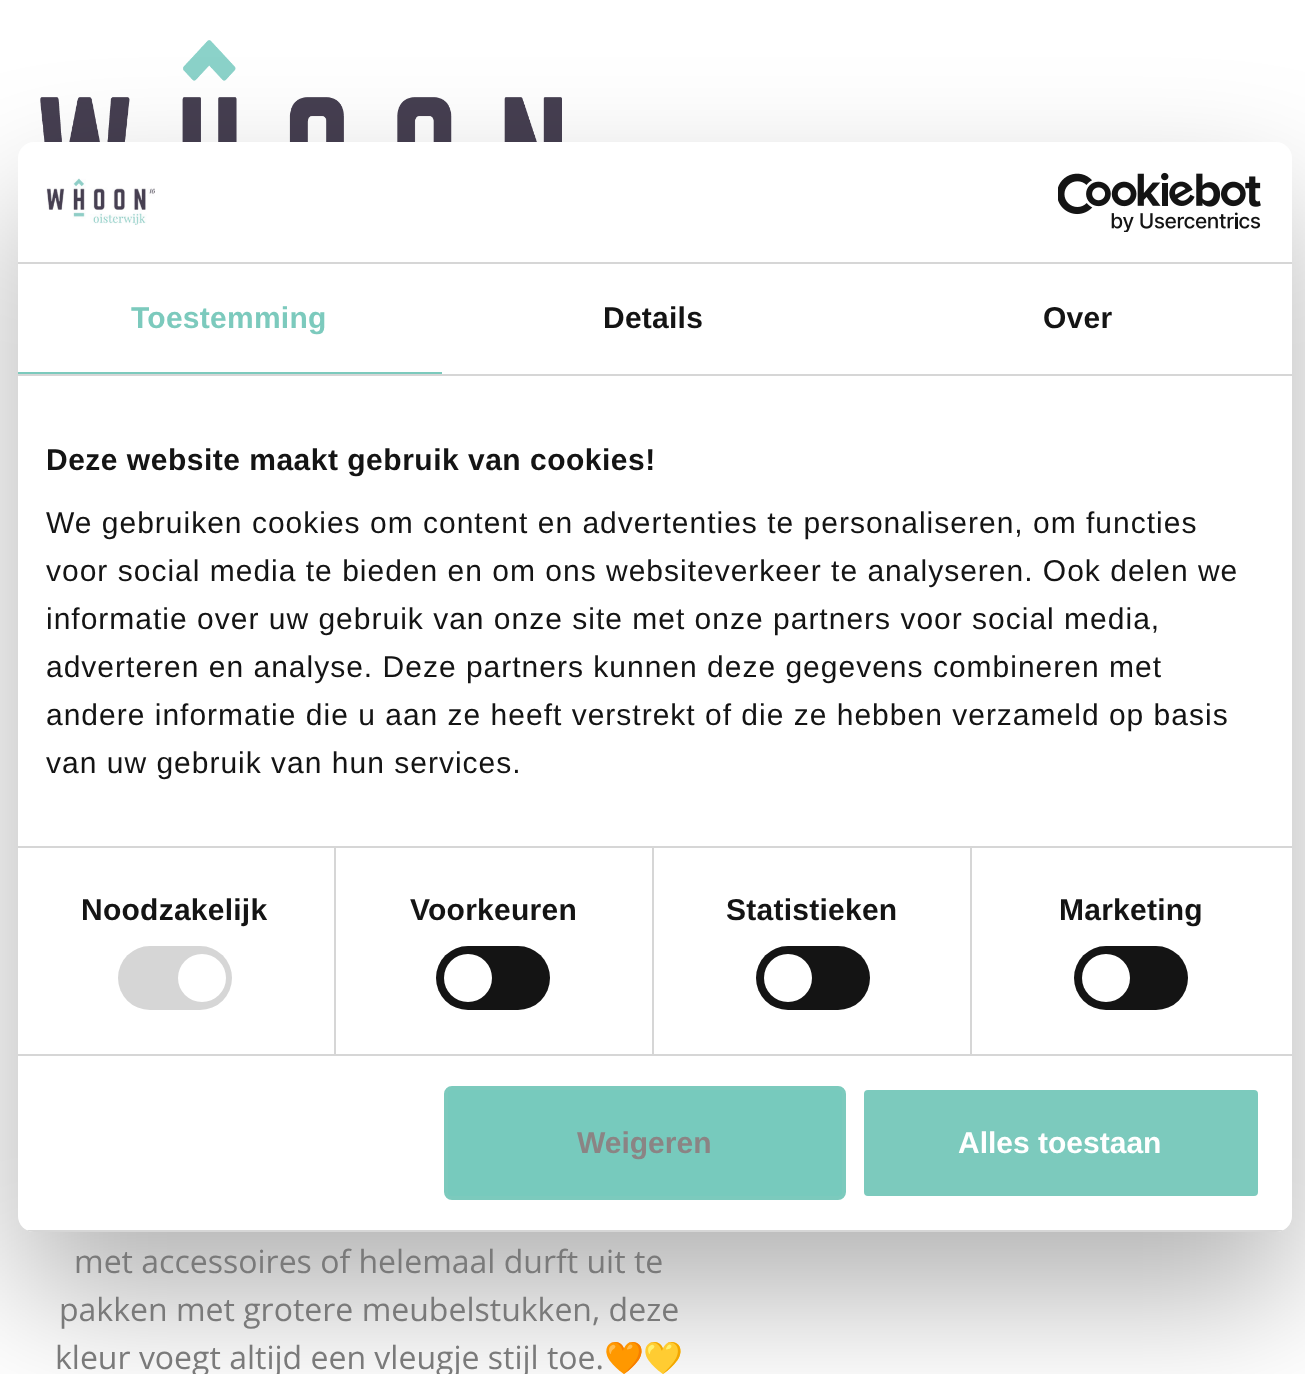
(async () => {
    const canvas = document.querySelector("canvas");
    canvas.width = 1305;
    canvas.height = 1374;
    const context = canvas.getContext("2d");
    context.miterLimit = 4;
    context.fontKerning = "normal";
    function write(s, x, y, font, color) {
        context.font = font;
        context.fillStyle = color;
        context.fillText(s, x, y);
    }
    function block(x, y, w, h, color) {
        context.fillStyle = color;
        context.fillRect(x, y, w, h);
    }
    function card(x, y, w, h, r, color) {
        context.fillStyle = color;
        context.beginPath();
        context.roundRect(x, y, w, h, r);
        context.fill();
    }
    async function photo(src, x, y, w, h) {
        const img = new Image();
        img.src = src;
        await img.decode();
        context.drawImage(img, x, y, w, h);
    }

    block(0, 0, 1305, 1374, "rgb(255, 255, 255)");
    await photo("media/1.png", 40, 40, 522, 102);
    context.fillStyle = "rgba(0, 0, 0, 0.3)";
    context.filter = "blur(68px)";
    context.beginPath();
    context.roundRect(18, 206, 1274, 1090, 16);
    context.fill();
    context.filter = "none";
    card(18, 142, 1274, 1090, 16, "rgb(255, 255, 255)");
    block(18, 262, 1274, 2, "rgb(214, 214, 214)");
    await photo("media/2.png", 46, 178, 109, 47);
    await photo("media/3.png", 1058, 172, 203, 60);
    block(18, 374, 1274, 2, "rgb(214, 214, 214)");
    block(18, 372, 424, 2, "rgb(124, 202, 189)");
    context.letterSpacing = "0.25px";
    write("Toestemming", 131, 328, "bold 30px Liberation Sans", "rgb(124, 202, 189)");
    write("Details", 603, 328, "bold 30px Liberation Sans", "rgb(20, 20, 20)");
    write("Over", 1043, 328, "bold 30px Liberation Sans", "rgb(20, 20, 20)");
    block(18, 846, 1274, 2, "rgb(214, 214, 214)");
    context.letterSpacing = "0.5px";
    write("Deze website maakt gebruik van cookies!", 46, 470, "bold 30px Liberation Sans", "rgb(20, 20, 20)");
    context.letterSpacing = "1px";
    write("We gebruiken cookies om content en advertenties te personaliseren, om functies", 46, 533, "30px Liberation Sans", "rgb(20, 20, 20)");
    write("voor social media te bieden en om ons websiteverkeer te analyseren. Ook delen we", 46, 581, "30px Liberation Sans", "rgb(20, 20, 20)");
    write("informatie over uw gebruik van onze site met onze partners voor social media,", 46, 629, "30px Liberation Sans", "rgb(20, 20, 20)");
    write("adverteren en analyse. Deze partners kunnen deze gegevens combineren met", 46, 677, "30px Liberation Sans", "rgb(20, 20, 20)");
    write("andere informatie die u aan ze heeft verstrekt of die ze hebben verzameld op basis", 46, 725, "30px Liberation Sans", "rgb(20, 20, 20)");
    write("van uw gebruik van hun services.", 46, 773, "30px Liberation Sans", "rgb(20, 20, 20)");
    block(18, 1054, 1274, 2, "rgb(214, 214, 214)");
    block(334, 848, 2, 206, "rgb(214, 214, 214)");
    context.letterSpacing = "0.25px";
    write("Noodzakelijk", 81, 920, "bold 30px Liberation Sans", "rgb(20, 20, 20)");
    card(118, 946, 114, 64, 32, "rgb(214, 214, 214)");
    context.fillStyle = "rgb(255, 255, 255)";
    context.beginPath();
    context.arc(202, 978, 24, 0, Math.PI * 2);
    context.fill();
    block(652, 848, 2, 206, "rgb(214, 214, 214)");
    write("Voorkeuren", 410, 920, "bold 30px Liberation Sans", "rgb(20, 20, 20)");
    card(436, 946, 114, 64, 32, "rgb(20, 20, 20)");
    context.fillStyle = "rgb(255, 255, 255)";
    context.beginPath();
    context.arc(468, 978, 24, 0, Math.PI * 2);
    context.fill();
    block(970, 848, 2, 206, "rgb(214, 214, 214)");
    write("Statistieken", 726, 920, "bold 30px Liberation Sans", "rgb(20, 20, 20)");
    card(756, 946, 114, 64, 32, "rgb(20, 20, 20)");
    context.fillStyle = "rgb(255, 255, 255)";
    context.beginPath();
    context.arc(788, 978, 24, 0, Math.PI * 2);
    context.fill();
    write("Marketing", 1059, 920, "bold 30px Liberation Sans", "rgb(20, 20, 20)");
    card(1074, 946, 114, 64, 32, "rgb(20, 20, 20)");
    context.fillStyle = "rgb(255, 255, 255)";
    context.beginPath();
    context.arc(1106, 978, 24, 0, Math.PI * 2);
    context.fill();
    context.save();
    context.beginPath();
    context.roundRect(18, 142, 1274, 1090, 16);
    context.clip();
    block(18, 1230, 1274, 2, "rgb(214, 214, 214)");
    context.restore();
    context.fillStyle = "rgb(119, 202, 189)";
    context.beginPath();
    context.roundRect(446, 1088, 398, 110, 6);
    context.fill();
    context.strokeStyle = "rgb(124, 202, 189)";
    context.lineWidth = 4;
    context.stroke();
    context.letterSpacing = "0px";
    write("Weigeren", 577, 1153, "bold 30px Liberation Sans", "rgb(139, 132, 132)");
    context.fillStyle = "rgb(124, 202, 189)";
    context.beginPath();
    context.roundRect(862, 1088, 398, 110, 6);
    context.fill();
    context.strokeStyle = "rgb(255, 255, 255)";
    context.stroke();
    write("Alles toestaan", 958, 1153, "bold 30px Liberation Sans", "rgb(255, 255, 255)");
    write("met accessoires of helemaal durft uit te", 74, 1273, "32px Open Sans", "rgb(122, 122, 122)");
    write("pakken met grotere meubelstukken, deze", 59, 1321, "32px Open Sans", "rgb(122, 122, 122)");
    write("kleur voegt altijd een vleugje stijl toe.", 55, 1369, "32px Open Sans", "rgb(122, 122, 122)");
    write("🧡💛", 604, 1369, "32px Noto Color Emoji", "rgb(122, 122, 122)");
})();
